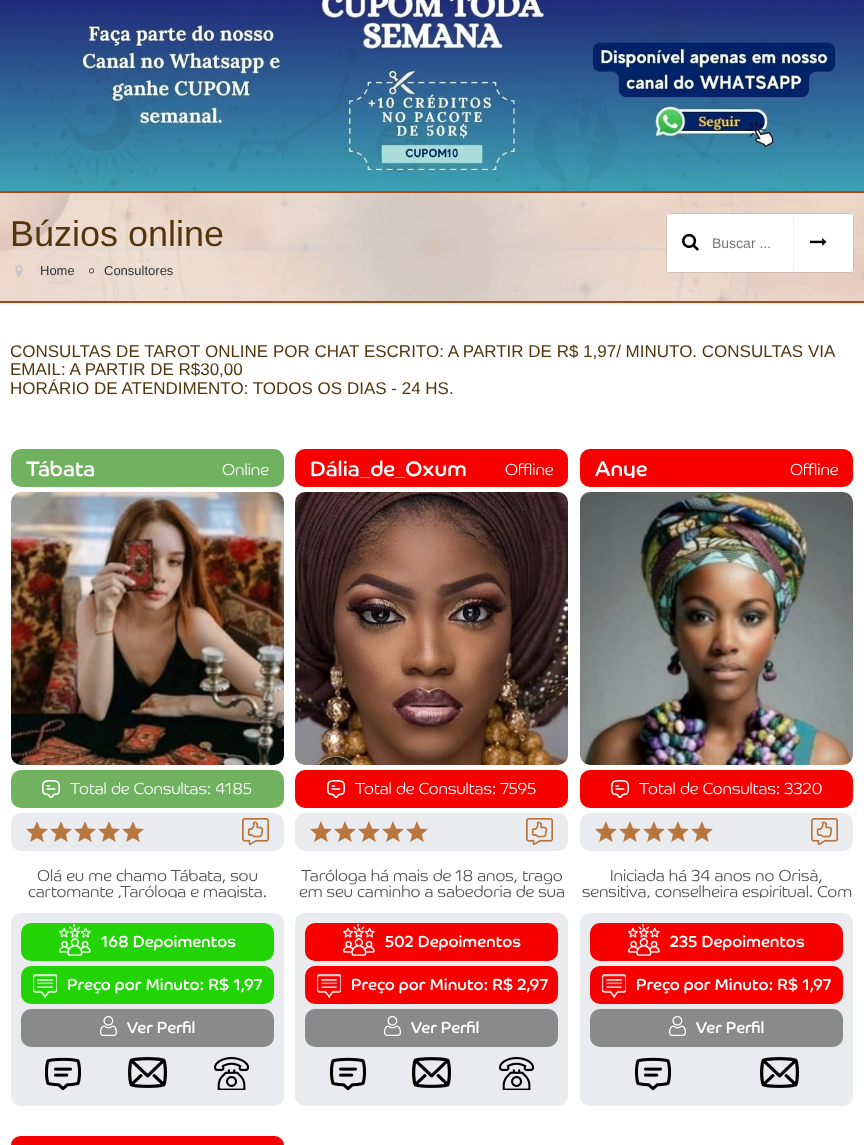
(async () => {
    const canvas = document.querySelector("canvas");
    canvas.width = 864;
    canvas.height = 1145;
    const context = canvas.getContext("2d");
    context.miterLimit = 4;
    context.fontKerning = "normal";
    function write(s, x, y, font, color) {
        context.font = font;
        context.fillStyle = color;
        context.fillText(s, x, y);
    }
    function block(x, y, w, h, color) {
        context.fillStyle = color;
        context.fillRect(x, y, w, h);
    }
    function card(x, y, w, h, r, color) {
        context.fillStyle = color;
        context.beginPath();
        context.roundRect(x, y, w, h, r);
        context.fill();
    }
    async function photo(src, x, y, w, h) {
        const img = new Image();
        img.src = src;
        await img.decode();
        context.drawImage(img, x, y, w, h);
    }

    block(0, 0, 864, 1145, "rgb(255, 255, 255)");
    await photo("media/1.png", 0, 0, 864, 191);
    await photo("media/2.png", 0, 193, 864, 108);
    block(0, 191, 864, 2, "rgb(172, 72, 20)");
    block(0, 301, 864, 2, "rgb(172, 72, 20)");
    write("Búzios online", 10, 246, "36px Liberation Sans", "rgb(83, 54, 13)");
    await photo("media/3.png", 15, 265, 8, 12);
    write("Home", 40, 275, "13px Liberation Sans", "rgb(51, 51, 51)");
    await photo("media/4.png", 89, 268, 6, 6);
    write("Consultores", 104, 275, "13px Liberation Sans", "rgb(51, 51, 51)");
    context.beginPath();
    context.roundRect(666.5, 213.5, 187, 59, 4.5);
    context.strokeStyle = "rgba(0, 0, 0, 0.1)";
    context.stroke();
    card(667, 214, 186, 58, 2, "rgb(255, 255, 255)");
    await photo("media/5.png", 682, 233, 17, 18);
    write("Buscar ...", 712, 248, "14px Liberation Sans", "rgb(117, 117, 117)");
    block(793, 214, 1, 58, "rgb(240, 242, 241)");
    await photo("media/6.png", 810, 238, 17, 8);
    write("CONSULTAS DE TAROT ONLINE POR CHAT ESCRITO: A PARTIR DE R$ 1,97/ MINUTO. CONSULTAS VIA", 10, 357, "17px Liberation Sans", "rgb(83, 54, 13)");
    write("EMAIL: A PARTIR DE R$30,00", 10, 375, "17px Liberation Sans", "rgb(83, 54, 13)");
    write("HORÁRIO DE ATENDIMENTO: TODOS OS DIAS - 24 HS.", 10, 394, "17px Liberation Sans", "rgb(83, 54, 13)");
    card(11, 449, 273, 38, 10, "rgb(113, 178, 96)");
    write("Tábata", 26, 476, "21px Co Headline", "rgb(255, 255, 255)");
    write("Online", 222, 475, "300 16px Co Headline", "rgb(255, 255, 255)");
    await photo("media/7.png", 11, 492, 273, 273);
    card(11, 770, 273, 38, 10, "rgb(113, 178, 96)");
    await photo("media/8.png", 42, 780, 18, 18);
    write("Total de Consultas: 4185", 70, 794, "300 16px Co Headline", "rgb(255, 255, 255)");
    card(11, 813, 273, 38, 10, "rgb(234, 235, 239)");
    await photo("media/9.png", 26, 821, 22, 21);
    await photo("media/9.png", 50, 821, 22, 21);
    await photo("media/9.png", 74, 821, 22, 21);
    await photo("media/9.png", 98, 821, 22, 21);
    await photo("media/9.png", 122, 821, 22, 21);
    await photo("media/10.png", 242, 818, 27, 27);
    write("Olá eu me chamo Tábata, sou", 37, 881, "300 16px Co Headline", "rgb(78, 78, 78)");
    context.save();
    context.beginPath();
    context.rect(11, 866, 273, 32);
    context.clip();
    write("cartomante ,Taróloga e magista.", 28, 897, "300 16px Co Headline", "rgb(78, 78, 78)");
    context.restore();
    card(11, 913, 273, 193, 10, "rgb(234, 235, 239)");
    card(21, 923, 253, 38, 10, "rgb(34, 212, 6)");
    await photo("media/11.png", 59, 924, 32, 32);
    write("168 Depoimentos", 101, 947, "16px Co Headline", "rgb(255, 255, 255)");
    card(21, 966, 253, 38, 10, "rgb(34, 212, 6)");
    await photo("media/12.png", 33, 974, 24, 24);
    write("Preço por Minuto: R$ 1,97", 67, 990, "16px Co Headline", "rgb(255, 255, 255)");
    card(21, 1009, 253, 38, 10, "rgb(138, 138, 138)");
    await photo("media/13.png", 100, 1016, 17, 20);
    write("Ver Perfil", 127, 1033, "16px Co Headline", "rgb(255, 255, 255)");
    await photo("media/14.png", 45, 1057, 36, 34);
    await photo("media/15.png", 128, 1057, 39, 31);
    await photo("media/16.png", 214, 1057, 35, 33);
    card(295, 449, 273, 38, 10, "rgb(246, 1, 0)");
    context.save();
    context.beginPath();
    context.rect(310, 457, 168, 21);
    context.clip();
    write("Dália_de_Oxum", 310, 476, "21px Co Headline", "rgb(255, 255, 255)");
    context.restore();
    write("Offline", 505, 475, "300 16px Co Headline", "rgb(255, 255, 255)");
    await photo("media/17.png", 295, 492, 273, 273);
    card(295, 770, 273, 38, 10, "rgb(246, 1, 0)");
    await photo("media/18.png", 327, 780, 18, 18);
    write("Total de Consultas: 7595", 355, 794, "300 16px Co Headline", "rgb(255, 255, 255)");
    card(295, 813, 273, 38, 10, "rgb(234, 235, 239)");
    await photo("media/9.png", 310, 821, 22, 21);
    await photo("media/9.png", 334, 821, 22, 21);
    await photo("media/9.png", 358, 821, 22, 21);
    await photo("media/9.png", 382, 821, 22, 21);
    await photo("media/9.png", 406, 821, 22, 21);
    await photo("media/10.png", 526, 818, 27, 27);
    write("Taróloga há mais de 18 anos, trago", 301, 881, "300 16px Co Headline", "rgb(78, 78, 78)");
    write("em seu caminho a sabedoria de sua", 299, 897, "300 16px Co Headline", "rgb(78, 78, 78)");
    card(295, 913, 273, 193, 10, "rgb(234, 235, 239)");
    card(305, 923, 253, 38, 10, "rgb(246, 1, 0)");
    await photo("media/19.png", 343, 924, 32, 32);
    write("502 Depoimentos", 385, 947, "16px Co Headline", "rgb(255, 255, 255)");
    card(305, 966, 253, 38, 10, "rgb(246, 1, 0)");
    await photo("media/20.png", 317, 974, 24, 24);
    write("Preço por Minuto: R$ 2,97", 351, 990, "16px Co Headline", "rgb(255, 255, 255)");
    card(305, 1009, 253, 38, 10, "rgb(138, 138, 138)");
    await photo("media/13.png", 384, 1016, 17, 20);
    write("Ver Perfil", 411, 1033, "16px Co Headline", "rgb(255, 255, 255)");
    await photo("media/14.png", 330, 1057, 36, 34);
    await photo("media/15.png", 412, 1057, 39, 31);
    await photo("media/16.png", 499, 1057, 35, 33);
    card(580, 449, 273, 38, 10, "rgb(246, 1, 0)");
    context.save();
    context.beginPath();
    context.rect(595, 457, 168, 21);
    context.clip();
    write("Anye", 595, 476, "21px Co Headline", "rgb(255, 255, 255)");
    context.restore();
    write("Offline", 790, 475, "300 16px Co Headline", "rgb(255, 255, 255)");
    await photo("media/21.png", 580, 492, 273, 273);
    card(580, 770, 273, 38, 10, "rgb(246, 1, 0)");
    await photo("media/18.png", 611, 780, 18, 18);
    write("Total de Consultas: 3320", 639, 794, "300 16px Co Headline", "rgb(255, 255, 255)");
    card(580, 813, 273, 38, 10, "rgb(234, 235, 239)");
    await photo("media/9.png", 595, 821, 22, 21);
    await photo("media/9.png", 619, 821, 22, 21);
    await photo("media/9.png", 643, 821, 22, 21);
    await photo("media/9.png", 667, 821, 22, 21);
    await photo("media/9.png", 691, 821, 22, 21);
    await photo("media/10.png", 811, 818, 27, 27);
    write("Iniciada há 34 anos no Orisà,", 610, 881, "300 16px Co Headline", "rgb(78, 78, 78)");
    context.save();
    context.beginPath();
    context.rect(580, 866, 273, 32);
    context.clip();
    write("sensitiva, conselheira espiritual. Com", 582, 897, "300 16px Co Headline", "rgb(78, 78, 78)");
    context.restore();
    card(580, 913, 273, 193, 10, "rgb(234, 235, 239)");
    card(590, 923, 253, 38, 10, "rgb(246, 1, 0)");
    await photo("media/19.png", 628, 924, 32, 32);
    write("235 Depoimentos", 670, 947, "16px Co Headline", "rgb(255, 255, 255)");
    card(590, 966, 253, 38, 10, "rgb(246, 1, 0)");
    await photo("media/20.png", 602, 974, 24, 24);
    write("Preço por Minuto: R$ 1,97", 636, 990, "16px Co Headline", "rgb(255, 255, 255)");
    card(590, 1009, 253, 38, 10, "rgb(138, 138, 138)");
    await photo("media/13.png", 669, 1016, 17, 20);
    write("Ver Perfil", 696, 1033, "16px Co Headline", "rgb(255, 255, 255)");
    await photo("media/14.png", 635, 1057, 36, 34);
    await photo("media/15.png", 760, 1057, 39, 31);
    card(11, 1136, 273, 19, 10, "rgb(246, 1, 0)");
})();
